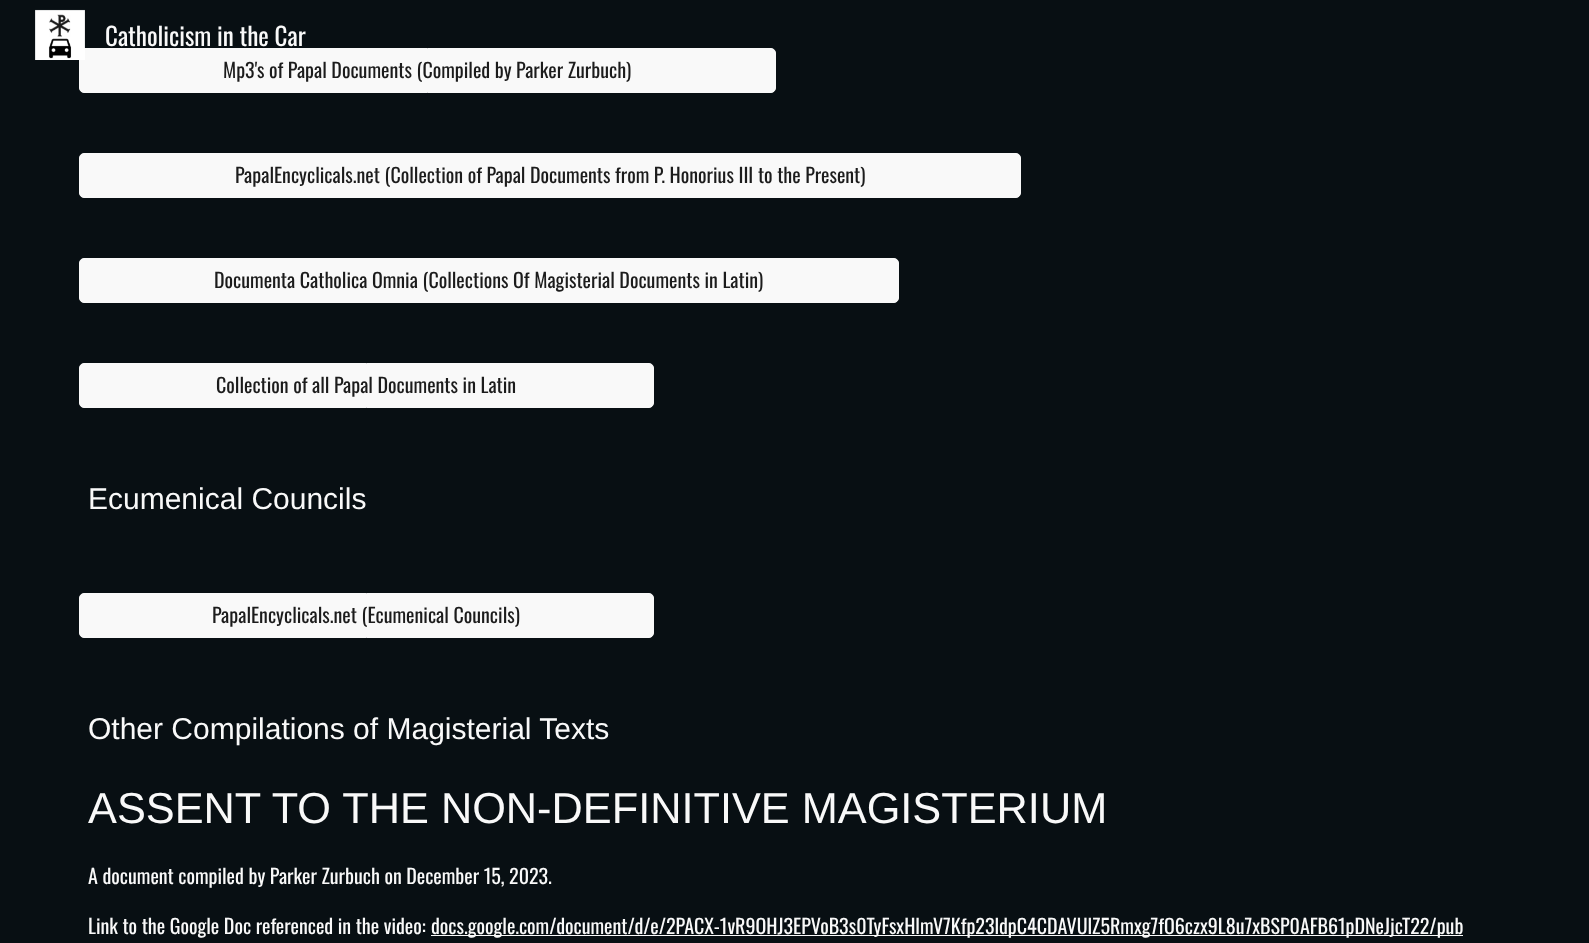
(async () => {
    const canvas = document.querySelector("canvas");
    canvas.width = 1589;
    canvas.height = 943;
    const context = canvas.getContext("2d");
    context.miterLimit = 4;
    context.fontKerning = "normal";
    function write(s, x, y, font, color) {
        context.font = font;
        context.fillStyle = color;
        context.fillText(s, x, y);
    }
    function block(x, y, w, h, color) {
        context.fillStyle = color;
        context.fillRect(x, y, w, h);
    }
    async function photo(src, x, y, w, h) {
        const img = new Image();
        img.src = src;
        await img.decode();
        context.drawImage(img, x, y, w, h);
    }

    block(0, 0, 1589, 943, "rgb(8, 15, 19)");
    context.fillStyle = "rgb(249, 249, 249)";
    context.beginPath();
    context.roundRect(79.5, 48.5, 696, 44, 4.5);
    context.fill();
    context.strokeStyle = "rgb(249, 249, 249)";
    context.stroke();
    await photo("media/1.png", 35, 9, 50, 51);
    write("Catholicism in the Car", 105, 46, "25px Oswald", "rgb(249, 249, 249)");
    write("Mp3's of Papal Documents (Compiled by Parker Zurbuch)", 223, 78, "20px Oswald", "rgb(28, 28, 28)");
    context.fillStyle = "rgb(249, 249, 249)";
    context.beginPath();
    context.roundRect(79.5, 153.5, 941, 44, 4.5);
    context.fill();
    context.stroke();
    write("PapalEncyclicals.net (Collection of Papal Documents from P. Honorius III to the Present)", 235, 183, "20px Oswald", "rgb(28, 28, 28)");
    context.fillStyle = "rgb(249, 249, 249)";
    context.beginPath();
    context.roundRect(79.5, 258.5, 819, 44, 4.5);
    context.fill();
    context.stroke();
    write("Documenta Catholica Omnia (Collections Of Magisterial Documents in Latin)", 214, 288, "20px Oswald", "rgb(28, 28, 28)");
    context.fillStyle = "rgb(249, 249, 249)";
    context.beginPath();
    context.roundRect(79.5, 363.5, 574, 44, 4.5);
    context.fill();
    context.stroke();
    write("Collection of all Papal Documents in Latin", 216, 393, "20px Oswald", "rgb(28, 28, 28)");
    write("Ecumenical Councils", 88, 509, "30px Liberation Sans", "rgb(249, 249, 249)");
    context.beginPath();
    context.roundRect(79.5, 593.5, 574, 44, 4.5);
    context.fill();
    context.stroke();
    write("PapalEncyclicals.net (Ecumenical Councils)", 212, 623, "20px Oswald", "rgb(28, 28, 28)");
    write("Other Compilations of Magisterial Texts", 88, 739, "30px Liberation Sans", "rgb(249, 249, 249)");
    write("ASSENT TO THE NON-DEFINITIVE MAGISTERIUM", 88, 823, "43.3px Liberation Sans", "rgb(249, 249, 249)");
    write("A document compiled by Parker Zurbuch on December 15, 2023.", 88, 884, "20px Oswald", "rgb(249, 249, 249)");
    write("Link to the Google Doc referenced in the video:", 88, 934, "20px Oswald", "rgb(249, 249, 249)");
    block(431, 935, 1032, 1, "rgb(249, 249, 249)");
    write("docs.google.com/document/d/e/2PACX-1vR9OHJ3EPVoB3s0TyFsxHlmV7Kfp23ldpC4CDAVUlZ5Rmxg7fO6czx9L8u7xBSP0AFB61pDNeJjcT22/pub", 431, 934, "20px Oswald", "rgb(249, 249, 249)");
})();
